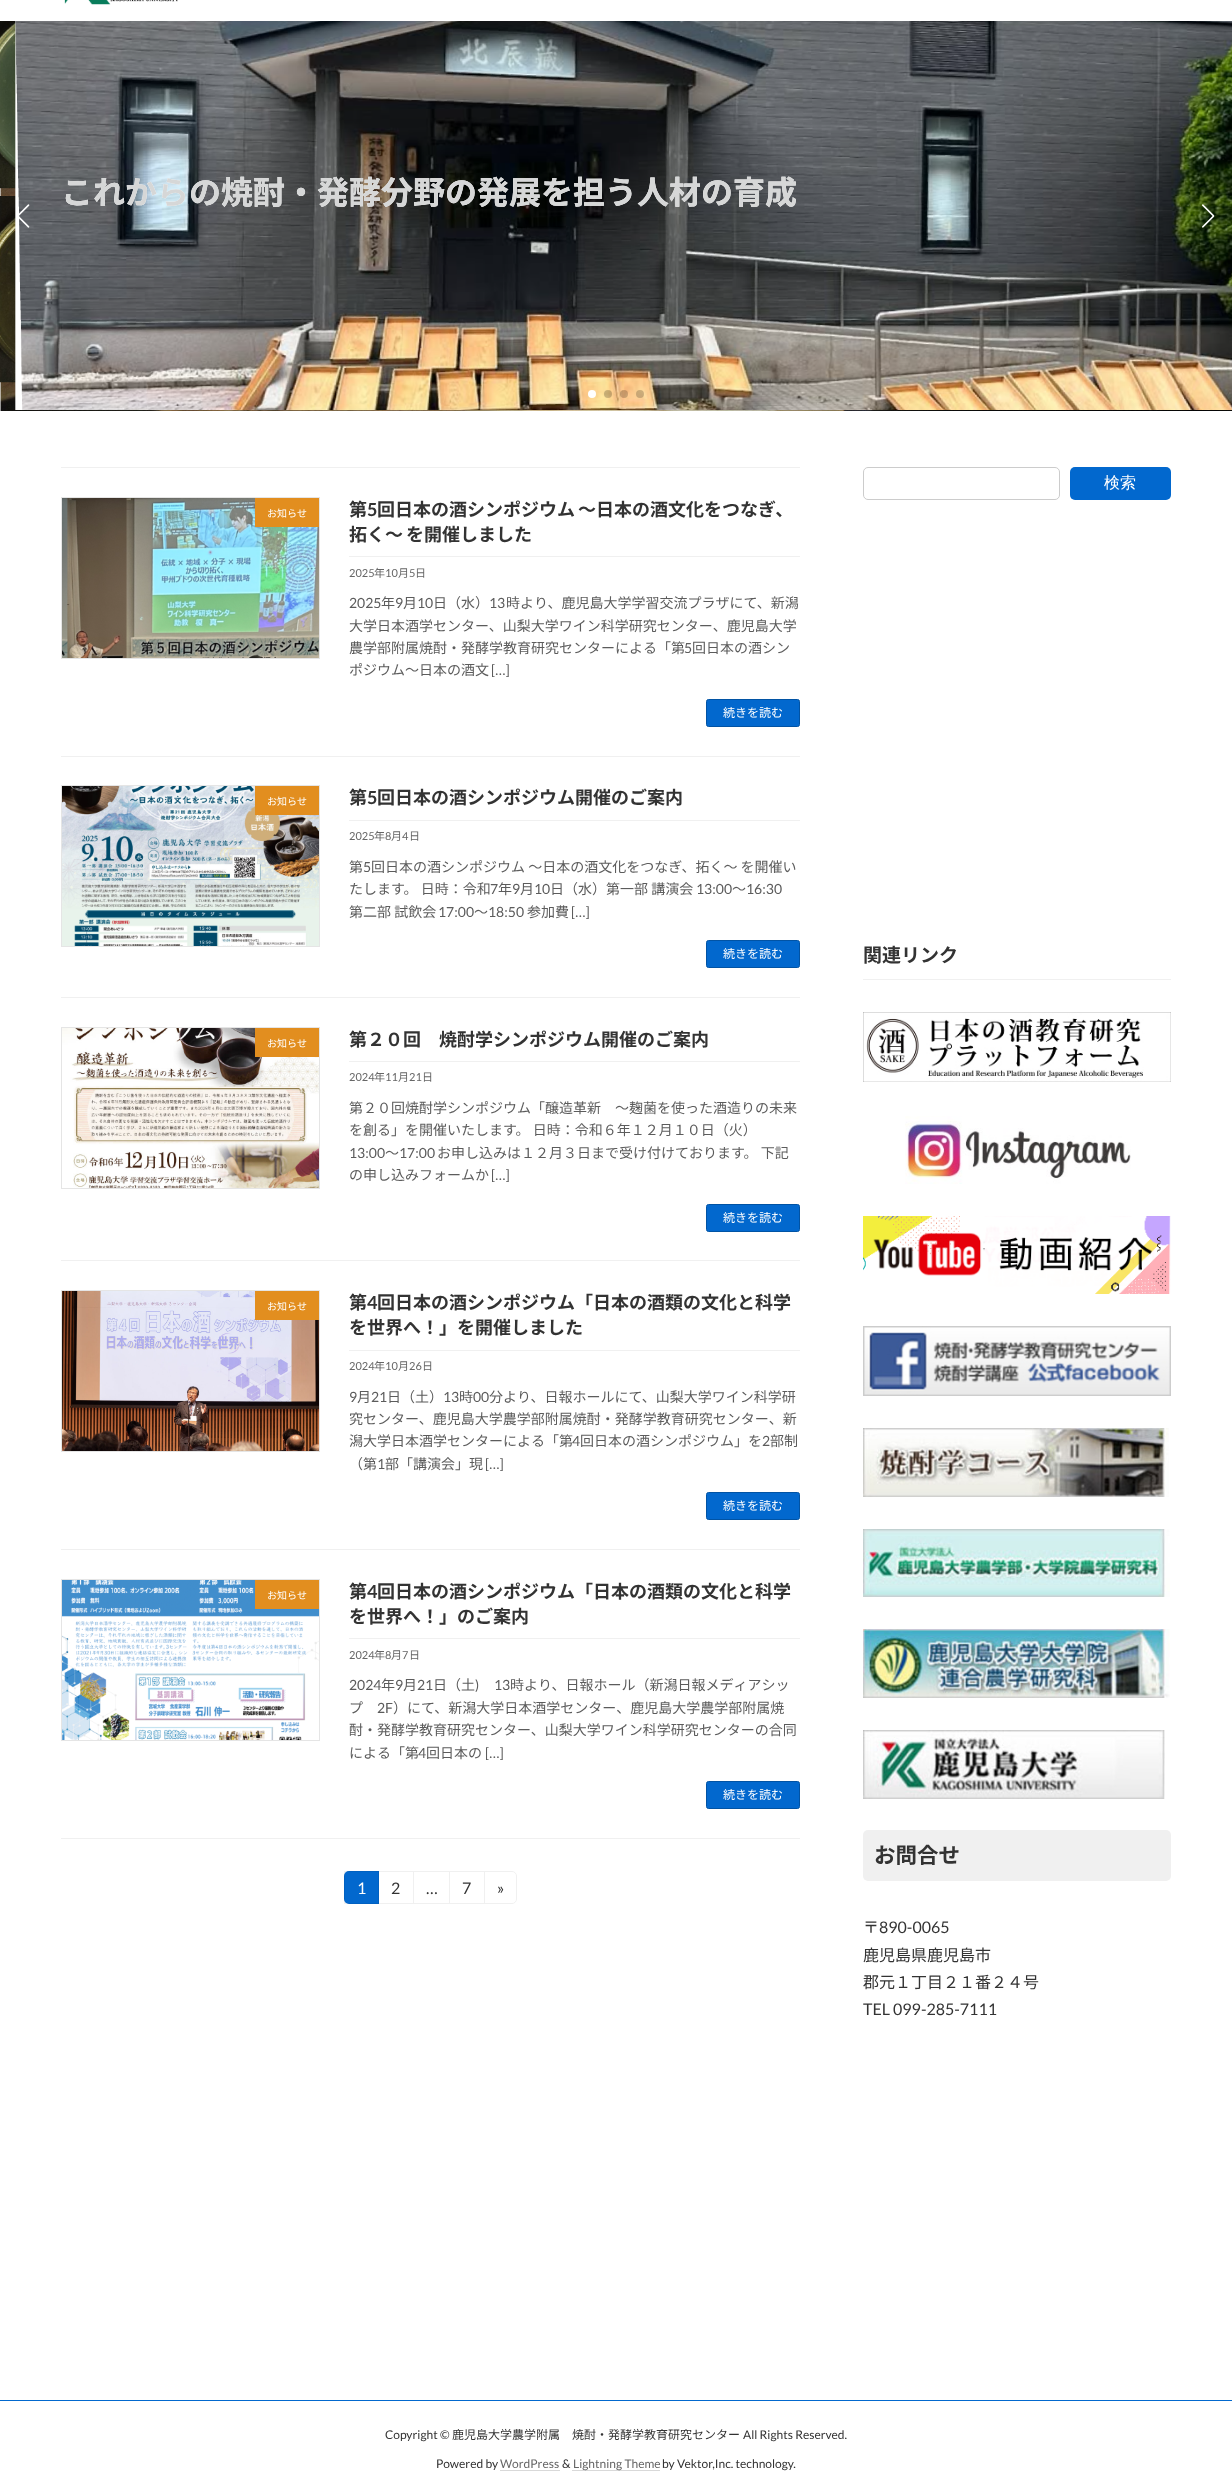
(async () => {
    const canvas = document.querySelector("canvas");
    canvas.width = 1232;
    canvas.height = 2479;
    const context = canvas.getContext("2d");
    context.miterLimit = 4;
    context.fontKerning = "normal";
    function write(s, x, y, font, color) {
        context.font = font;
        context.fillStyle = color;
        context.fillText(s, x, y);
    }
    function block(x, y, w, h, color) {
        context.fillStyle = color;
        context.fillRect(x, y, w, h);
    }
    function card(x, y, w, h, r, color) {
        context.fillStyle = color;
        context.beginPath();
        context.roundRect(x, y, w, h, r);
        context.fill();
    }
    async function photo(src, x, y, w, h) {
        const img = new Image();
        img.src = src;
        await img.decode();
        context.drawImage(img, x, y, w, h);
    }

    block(0, 0, 1232, 2479, "rgb(255, 255, 255)");
    await photo("media/1.png", 64, 0, 114, 5);
    await photo("media/3.png", 0, 188, 1232, 223);
    await photo("media/2.png", 0, 21, 1232, 389);
    write("これからの焼酎・発酵分野の発展を担う人材の育成", 61, 204, "bold 32px Noto Sans JP", "rgb(255, 255, 255)");
    write("これからの焼酎・発酵分野の発展を担う人材の育成", 61, 204, "bold 32px Noto Sans JP", "rgb(214, 215, 215)");
    await photo("media/4.png", 19, 204, 11, 24);
    await photo("media/5.png", 1202, 204, 13, 24);
    context.fillStyle = "rgb(255, 255, 255)";
    context.beginPath();
    context.arc(592, 394, 4, 0, Math.PI * 2);
    context.fill();
    context.fillStyle = "rgba(0, 0, 0, 0.2)";
    context.beginPath();
    context.arc(608, 394, 4, 0, Math.PI * 2);
    context.fill();
    context.beginPath();
    context.arc(624, 394, 4, 0, Math.PI * 2);
    context.fill();
    context.beginPath();
    context.arc(640, 394, 4, 0, Math.PI * 2);
    context.fill();
    block(61, 467, 739, 1, "rgb(240, 240, 240)");
    block(61, 756, 739, 1, "rgb(240, 240, 240)");
    await photo("media/6.png", 62, 498, 257, 160);
    context.strokeStyle = "rgb(229, 229, 229)";
    context.strokeRect(61.5, 497.5, 258, 161);
    block(255, 498, 64, 29, "rgb(226, 142, 31)");
    write("お知らせ", 267, 517, "10px Noto Sans JP", "rgb(255, 255, 255)");
    block(349, 556, 451, 1, "rgb(240, 240, 240)");
    write("第", 349, 516, "bold 18px Noto Sans JP", "rgb(51, 51, 51)");
    write("5", 367, 516, "bold 18px Lato", "rgb(51, 51, 51)");
    context.wordSpacing = "-1px";
    write("回日本の酒シンポジウム ～日本の酒文化をつなぎ、", 377, 516, "bold 18px Noto Sans JP", "rgb(51, 51, 51)");
    write("拓く～ を開催しました", 349, 541, "bold 18px Noto Sans JP", "rgb(51, 51, 51)");
    context.wordSpacing = "0px";
    write("2025", 349, 577, "11px Lato", "rgb(102, 102, 102)");
    write("年", 374, 577, "11px Noto Sans JP", "rgb(102, 102, 102)");
    write("10", 385, 577, "11px Lato", "rgb(102, 102, 102)");
    write("月", 398, 577, "11px Noto Sans JP", "rgb(102, 102, 102)");
    write("5", 409, 577, "11px Lato", "rgb(102, 102, 102)");
    write("日", 415, 577, "11px Noto Sans JP", "rgb(102, 102, 102)");
    write("2025", 349, 608, "14px Lato", "rgb(92, 92, 92)");
    write("年", 381, 608, "14px Noto Sans JP", "rgb(92, 92, 92)");
    write("9", 395, 608, "14px Lato", "rgb(92, 92, 92)");
    write("月", 403, 608, "14px Noto Sans JP", "rgb(92, 92, 92)");
    write("10", 417, 608, "14px Lato", "rgb(92, 92, 92)");
    write("日（水）", 433, 608, "14px Noto Sans JP", "rgb(92, 92, 92)");
    write("13", 489, 608, "14px Lato", "rgb(92, 92, 92)");
    write("時より、鹿児島大学学習交流プラザにて、新潟", 506, 608, "14px Noto Sans JP", "rgb(92, 92, 92)");
    write("大学日本酒学センター、山梨大学ワイン科学研究センター、鹿児島大学", 349, 631, "14px Noto Sans JP", "rgb(92, 92, 92)");
    write("農学部附属焼酎・発酵学教育研究センターによる「第", 349, 653, "14px Noto Sans JP", "rgb(92, 92, 92)");
    write("5", 684, 653, "14px Lato", "rgb(92, 92, 92)");
    write("回日本の酒シン", 692, 653, "14px Noto Sans JP", "rgb(92, 92, 92)");
    write("ポジウム～日本の酒文", 349, 675, "14px Noto Sans JP", "rgb(92, 92, 92)");
    write("[…]", 491, 675, "14px Lato", "rgb(92, 92, 92)");
    context.fillStyle = "rgb(2, 104, 206)";
    context.beginPath();
    context.roundRect(706.5, 699.5, 93, 27, 2);
    context.fill();
    context.strokeStyle = "rgb(1, 83, 164)";
    context.stroke();
    write("続きを読む", 723, 717, "12px Noto Sans JP", "rgb(255, 255, 255)");
    block(61, 997, 739, 1, "rgb(240, 240, 240)");
    await photo("media/7.png", 62, 786, 257, 160);
    context.strokeStyle = "rgb(229, 229, 229)";
    context.strokeRect(61.5, 785.5, 258, 161);
    block(255, 786, 64, 29, "rgb(226, 142, 31)");
    write("お知らせ", 267, 805, "10px Noto Sans JP", "rgb(255, 255, 255)");
    block(349, 820, 451, 1, "rgb(240, 240, 240)");
    write("第", 349, 804, "bold 18px Noto Sans JP", "rgb(51, 51, 51)");
    write("5", 367, 804, "bold 18px Lato", "rgb(51, 51, 51)");
    write("回日本の酒シンポジウム開催のご案内", 377, 804, "bold 18px Noto Sans JP", "rgb(51, 51, 51)");
    write("2025", 349, 840, "11px Lato", "rgb(102, 102, 102)");
    write("年", 374, 840, "11px Noto Sans JP", "rgb(102, 102, 102)");
    write("8", 385, 840, "11px Lato", "rgb(102, 102, 102)");
    write("月", 391, 840, "11px Noto Sans JP", "rgb(102, 102, 102)");
    write("4", 402, 840, "11px Lato", "rgb(102, 102, 102)");
    write("日", 409, 840, "11px Noto Sans JP", "rgb(102, 102, 102)");
    write("第", 349, 872, "14px Noto Sans JP", "rgb(92, 92, 92)");
    write("5", 363, 872, "14px Lato", "rgb(92, 92, 92)");
    write("回日本の酒シンポジウム ～日本の酒文化をつなぎ、拓く～ を開催い", 371, 872, "14px Noto Sans JP", "rgb(92, 92, 92)");
    write("たします。 日時：令和", 349, 894, "14px Noto Sans JP", "rgb(92, 92, 92)");
    write("7", 490, 894, "14px Lato", "rgb(92, 92, 92)");
    write("年", 498, 894, "14px Noto Sans JP", "rgb(92, 92, 92)");
    write("9", 512, 894, "14px Lato", "rgb(92, 92, 92)");
    write("月", 520, 894, "14px Noto Sans JP", "rgb(92, 92, 92)");
    write("10", 534, 894, "14px Lato", "rgb(92, 92, 92)");
    write("日（水）第一部 講演会", 550, 894, "14px Noto Sans JP", "rgb(92, 92, 92)");
    write("13:00", 696, 894, "14px Lato", "rgb(92, 92, 92)");
    write("〜", 732, 894, "14px Noto Sans JP", "rgb(92, 92, 92)");
    write("16:30", 746, 894, "14px Lato", "rgb(92, 92, 92)");
    write("第二部 試飲会", 349, 917, "14px Noto Sans JP", "rgb(92, 92, 92)");
    write("17:00", 438, 917, "14px Lato", "rgb(92, 92, 92)");
    write("～", 474, 917, "14px Noto Sans JP", "rgb(92, 92, 92)");
    write("18:50", 488, 917, "14px Lato", "rgb(92, 92, 92)");
    write("参加費", 527, 917, "14px Noto Sans JP", "rgb(92, 92, 92)");
    write("[…]", 571, 917, "14px Lato", "rgb(92, 92, 92)");
    context.fillStyle = "rgb(2, 104, 206)";
    context.beginPath();
    context.roundRect(706.5, 940.5, 93, 27, 2);
    context.fill();
    context.strokeStyle = "rgb(1, 83, 164)";
    context.stroke();
    write("続きを読む", 723, 958, "12px Noto Sans JP", "rgb(255, 255, 255)");
    block(61, 1260, 739, 1, "rgb(240, 240, 240)");
    await photo("media/8.png", 62, 1028, 257, 160);
    context.strokeStyle = "rgb(229, 229, 229)";
    context.strokeRect(61.5, 1027.5, 258, 161);
    block(255, 1028, 64, 29, "rgb(226, 142, 31)");
    write("お知らせ", 267, 1047, "10px Noto Sans JP", "rgb(255, 255, 255)");
    block(349, 1061, 451, 1, "rgb(240, 240, 240)");
    write("第２０回　焼酎学シンポジウム開催のご案内", 349, 1046, "bold 18px Noto Sans JP", "rgb(51, 51, 51)");
    write("2024", 349, 1081, "11px Lato", "rgb(102, 102, 102)");
    write("年", 374, 1081, "11px Noto Sans JP", "rgb(102, 102, 102)");
    write("11", 385, 1081, "11px Lato", "rgb(102, 102, 102)");
    write("月", 398, 1081, "11px Noto Sans JP", "rgb(102, 102, 102)");
    write("21", 409, 1081, "11px Lato", "rgb(102, 102, 102)");
    write("日", 422, 1081, "11px Noto Sans JP", "rgb(102, 102, 102)");
    write("第２０回焼酎学シンポジウム「醸造革新　〜麹菌を使った酒造りの未来", 349, 1113, "14px Noto Sans JP", "rgb(92, 92, 92)");
    write("を創る」を開催いたします。 日時：令和６年１２月１０日（火）", 349, 1135, "14px Noto Sans JP", "rgb(92, 92, 92)");
    write("13:00", 349, 1158, "14px Lato", "rgb(92, 92, 92)");
    write("〜", 385, 1158, "14px Noto Sans JP", "rgb(92, 92, 92)");
    write("17:00", 399, 1158, "14px Lato", "rgb(92, 92, 92)");
    write("お申し込みは１２月３日まで受け付けております。 下記", 437, 1158, "14px Noto Sans JP", "rgb(92, 92, 92)");
    write("の申し込みフォームか", 349, 1180, "14px Noto Sans JP", "rgb(92, 92, 92)");
    write("[…]", 491, 1180, "14px Lato", "rgb(92, 92, 92)");
    context.fillStyle = "rgb(2, 104, 206)";
    context.beginPath();
    context.roundRect(706.5, 1204.5, 93, 27, 2);
    context.fill();
    context.strokeStyle = "rgb(1, 83, 164)";
    context.stroke();
    write("続きを読む", 723, 1222, "12px Noto Sans JP", "rgb(255, 255, 255)");
    block(61, 1549, 739, 1, "rgb(240, 240, 240)");
    await photo("media/9.png", 62, 1291, 257, 160);
    context.strokeStyle = "rgb(229, 229, 229)";
    context.strokeRect(61.5, 1290.5, 258, 161);
    block(255, 1291, 64, 29, "rgb(226, 142, 31)");
    write("お知らせ", 267, 1310, "10px Noto Sans JP", "rgb(255, 255, 255)");
    block(349, 1350, 451, 1, "rgb(240, 240, 240)");
    write("第", 349, 1309, "bold 18px Noto Sans JP", "rgb(51, 51, 51)");
    write("4", 367, 1309, "bold 18px Lato", "rgb(51, 51, 51)");
    write("回日本の酒シンポジウム「日本の酒類の文化と科学", 377, 1309, "bold 18px Noto Sans JP", "rgb(51, 51, 51)");
    write("を世界へ！」を開催しました", 349, 1334, "bold 18px Noto Sans JP", "rgb(51, 51, 51)");
    write("2024", 349, 1370, "11px Lato", "rgb(102, 102, 102)");
    write("年", 374, 1370, "11px Noto Sans JP", "rgb(102, 102, 102)");
    write("10", 385, 1370, "11px Lato", "rgb(102, 102, 102)");
    write("月", 398, 1370, "11px Noto Sans JP", "rgb(102, 102, 102)");
    write("26", 409, 1370, "11px Lato", "rgb(102, 102, 102)");
    write("日", 422, 1370, "11px Noto Sans JP", "rgb(102, 102, 102)");
    write("9", 349, 1402, "14px Lato", "rgb(92, 92, 92)");
    write("月", 357, 1402, "14px Noto Sans JP", "rgb(92, 92, 92)");
    write("21", 371, 1402, "14px Lato", "rgb(92, 92, 92)");
    write("日（土）", 387, 1402, "14px Noto Sans JP", "rgb(92, 92, 92)");
    write("13", 443, 1402, "14px Lato", "rgb(92, 92, 92)");
    write("時", 459, 1402, "14px Noto Sans JP", "rgb(92, 92, 92)");
    write("00", 473, 1402, "14px Lato", "rgb(92, 92, 92)");
    write("分より、日報ホールにて、山梨大学ワイン科学研", 489, 1402, "14px Noto Sans JP", "rgb(92, 92, 92)");
    write("究センター、鹿児島大学農学部附属焼酎・発酵学教育研究センター、新", 349, 1424, "14px Noto Sans JP", "rgb(92, 92, 92)");
    write("潟大学日本酒学センターによる「第", 349, 1446, "14px Noto Sans JP", "rgb(92, 92, 92)");
    write("4", 572, 1446, "14px Lato", "rgb(92, 92, 92)");
    write("回日本の酒シンポジウム」を", 580, 1446, "14px Noto Sans JP", "rgb(92, 92, 92)");
    write("2", 762, 1446, "14px Lato", "rgb(92, 92, 92)");
    write("部制", 770, 1446, "14px Noto Sans JP", "rgb(92, 92, 92)");
    write("（第", 349, 1469, "14px Noto Sans JP", "rgb(92, 92, 92)");
    write("1", 377, 1469, "14px Lato", "rgb(92, 92, 92)");
    write("部「講演会」現", 385, 1469, "14px Noto Sans JP", "rgb(92, 92, 92)");
    write("[…]", 485, 1469, "14px Lato", "rgb(92, 92, 92)");
    context.fillStyle = "rgb(2, 104, 206)";
    context.beginPath();
    context.roundRect(706.5, 1492.5, 93, 27, 2);
    context.fill();
    context.strokeStyle = "rgb(1, 83, 164)";
    context.stroke();
    write("続きを読む", 723, 1510, "12px Noto Sans JP", "rgb(255, 255, 255)");
    block(61, 1838, 739, 1, "rgb(240, 240, 240)");
    await photo("media/10.png", 62, 1580, 257, 160);
    context.strokeStyle = "rgb(229, 229, 229)";
    context.strokeRect(61.5, 1579.5, 258, 161);
    block(255, 1580, 64, 29, "rgb(226, 142, 31)");
    write("お知らせ", 267, 1599, "10px Noto Sans JP", "rgb(255, 255, 255)");
    block(349, 1638, 451, 1, "rgb(240, 240, 240)");
    write("第", 349, 1598, "bold 18px Noto Sans JP", "rgb(51, 51, 51)");
    write("4", 367, 1598, "bold 18px Lato", "rgb(51, 51, 51)");
    write("回日本の酒シンポジウム「日本の酒類の文化と科学", 377, 1598, "bold 18px Noto Sans JP", "rgb(51, 51, 51)");
    write("を世界へ！」のご案内", 349, 1623, "bold 18px Noto Sans JP", "rgb(51, 51, 51)");
    write("2024", 349, 1659, "11px Lato", "rgb(102, 102, 102)");
    write("年", 374, 1659, "11px Noto Sans JP", "rgb(102, 102, 102)");
    write("8", 385, 1659, "11px Lato", "rgb(102, 102, 102)");
    write("月", 391, 1659, "11px Noto Sans JP", "rgb(102, 102, 102)");
    write("7", 402, 1659, "11px Lato", "rgb(102, 102, 102)");
    write("日", 409, 1659, "11px Noto Sans JP", "rgb(102, 102, 102)");
    write("2024", 349, 1690, "14px Lato", "rgb(92, 92, 92)");
    write("年", 381, 1690, "14px Noto Sans JP", "rgb(92, 92, 92)");
    write("9", 395, 1690, "14px Lato", "rgb(92, 92, 92)");
    write("月", 403, 1690, "14px Noto Sans JP", "rgb(92, 92, 92)");
    write("21", 417, 1690, "14px Lato", "rgb(92, 92, 92)");
    write("日（土", 433, 1690, "14px Noto Sans JP", "rgb(92, 92, 92)");
    write(")", 475, 1690, "14px Lato", "rgb(92, 92, 92)");
    write("13", 494, 1690, "14px Lato", "rgb(92, 92, 92)");
    write("時より、日報ホール（新潟日報メディアシッ", 510, 1690, "14px Noto Sans JP", "rgb(92, 92, 92)");
    write("プ", 349, 1713, "14px Noto Sans JP", "rgb(92, 92, 92)");
    write("2F", 377, 1713, "14px Lato", "rgb(92, 92, 92)");
    write("）にて、新潟大学日本酒学センター、鹿児島大学農学部附属焼", 393, 1713, "14px Noto Sans JP", "rgb(92, 92, 92)");
    write("酎・発酵学教育研究センター、山梨大学ワイン科学研究センターの合同", 349, 1735, "14px Noto Sans JP", "rgb(92, 92, 92)");
    write("による「第", 349, 1758, "14px Noto Sans JP", "rgb(92, 92, 92)");
    write("4", 418, 1758, "14px Lato", "rgb(92, 92, 92)");
    write("回日本の", 426, 1758, "14px Noto Sans JP", "rgb(92, 92, 92)");
    write("[…]", 485, 1758, "14px Lato", "rgb(92, 92, 92)");
    context.fillStyle = "rgb(2, 104, 206)";
    context.beginPath();
    context.roundRect(706.5, 1781.5, 93, 27, 2);
    context.fill();
    context.strokeStyle = "rgb(1, 83, 164)";
    context.stroke();
    write("続きを読む", 723, 1799, "12px Noto Sans JP", "rgb(255, 255, 255)");
    context.fillStyle = "rgb(2, 104, 206)";
    context.beginPath();
    context.roundRect(344, 1871, 35, 33, [5, 0, 0, 5]);
    context.fill();
    context.strokeStyle = "rgba(0, 0, 0, 0.06)";
    context.strokeRect(344.5, 1871.5, 34, 32);
    write("1", 357, 1894, "16px Lato", "rgb(255, 255, 255)");
    context.save();
    context.beginPath();
    context.rect(379, 1871, 35, 33);
    context.clip();
    context.strokeStyle = "rgb(240, 240, 240)";
    context.strokeRect(378.5, 1871.5, 35, 32);
    context.restore();
    write("2", 391, 1894, "16px Lato", "rgb(51, 51, 51)");
    context.save();
    context.beginPath();
    context.rect(414, 1871, 36, 33);
    context.clip();
    context.strokeStyle = "rgb(240, 240, 240)";
    context.strokeRect(413.5, 1871.5, 36, 32);
    context.restore();
    context.save();
    context.beginPath();
    context.rect(450, 1871, 35, 33);
    context.clip();
    context.strokeStyle = "rgb(240, 240, 240)";
    context.strokeRect(449.5, 1871.5, 35, 32);
    context.restore();
    write("7", 462, 1894, "16px Lato", "rgb(51, 51, 51)");
    context.save();
    context.beginPath();
    context.rect(485, 1871, 32, 33);
    context.clip();
    context.beginPath();
    context.roundRect(484.5, 1871.5, 32, 32, [0, 4.5, 4.5, 0]);
    context.strokeStyle = "rgb(240, 240, 240)";
    context.stroke();
    context.restore();
    write("»", 497, 1894, "16px Lato", "rgb(51, 51, 51)");
    write("…", 426, 1894, "16px Lato", "rgb(51, 51, 51)");
    context.beginPath();
    context.roundRect(863.5, 467.5, 196, 32, 4.5);
    context.strokeStyle = "rgb(204, 204, 204)";
    context.stroke();
    card(1070, 467, 101, 33, 5, "rgb(2, 104, 206)");
    write("検索", 1104, 488, "500 16px WenQuanYi Zen Hei", "rgb(255, 255, 255)");
    block(863, 979, 308, 1, "rgb(240, 240, 240)");
    write("関連リンク", 863, 962, "bold 19px Noto Sans JP", "rgb(51, 51, 51)");
    await photo("media/11.png", 863, 1012, 308, 70);
    await photo("media/12.png", 905, 1116, 226, 68);
    await photo("media/13.png", 863, 1216, 308, 78);
    await photo("media/14.png", 863, 1326, 308, 70);
    await photo("media/15.png", 863, 1428, 306, 69);
    await photo("media/16.png", 863, 1529, 307, 68);
    await photo("media/17.png", 863, 1629, 307, 69);
    await photo("media/18.png", 863, 1730, 302, 69);
    card(863, 1830, 308, 51, 5, "rgb(240, 240, 240)");
    write("お問合せ", 874, 1863, "bold 21.5px Noto Sans JP", "rgb(51, 51, 51)");
    write("〒", 863, 1933, "16px Noto Sans JP", "rgb(51, 51, 51)");
    write("890-0065", 879, 1933, "16px Lato", "rgb(51, 51, 51)");
    write("鹿児島県鹿児島市", 863, 1961, "16px Noto Sans JP", "rgb(51, 51, 51)");
    write("郡元１丁目２１番２４号", 863, 1988, "16px Noto Sans JP", "rgb(51, 51, 51)");
    write("TEL 099-285-7111", 863, 2015, "16px Lato", "rgb(51, 51, 51)");
    block(0, 2400, 1232, 1, "rgb(2, 104, 206)");
    write("Copyright ©", 385, 2439, "12px Lato", "rgb(51, 51, 51)");
    write("鹿児島大学農学附属　焼酎・発酵学教育研究センター", 452, 2439, "12px Noto Sans JP", "rgb(51, 51, 51)");
    write("All Rights Reserved.", 743, 2439, "12px Lato", "rgb(51, 51, 51)");
    write("Powered by", 436, 2468, "12px Lato", "rgb(51, 51, 51)");
    write("WordPress", 500, 2468, "12px Lato", "rgb(102, 102, 102)");
    context.beginPath();
    context.moveTo(500.5, 2470.5);
    context.lineTo(559.5, 2470.5);
    context.strokeStyle = "rgb(179, 179, 179)";
    context.setLineDash([1, 1]);
    context.stroke();
    write("&", 562, 2468, "12px Lato", "rgb(51, 51, 51)");
    context.beginPath();
    context.moveTo(572.5, 2470.5);
    context.lineTo(660, 2470.5);
    context.stroke();
    write("Lightning Theme", 573, 2468, "12px Lato", "rgb(102, 102, 102)");
    write("by Vektor,Inc. technology.", 662, 2468, "12px Lato", "rgb(51, 51, 51)");
})();
